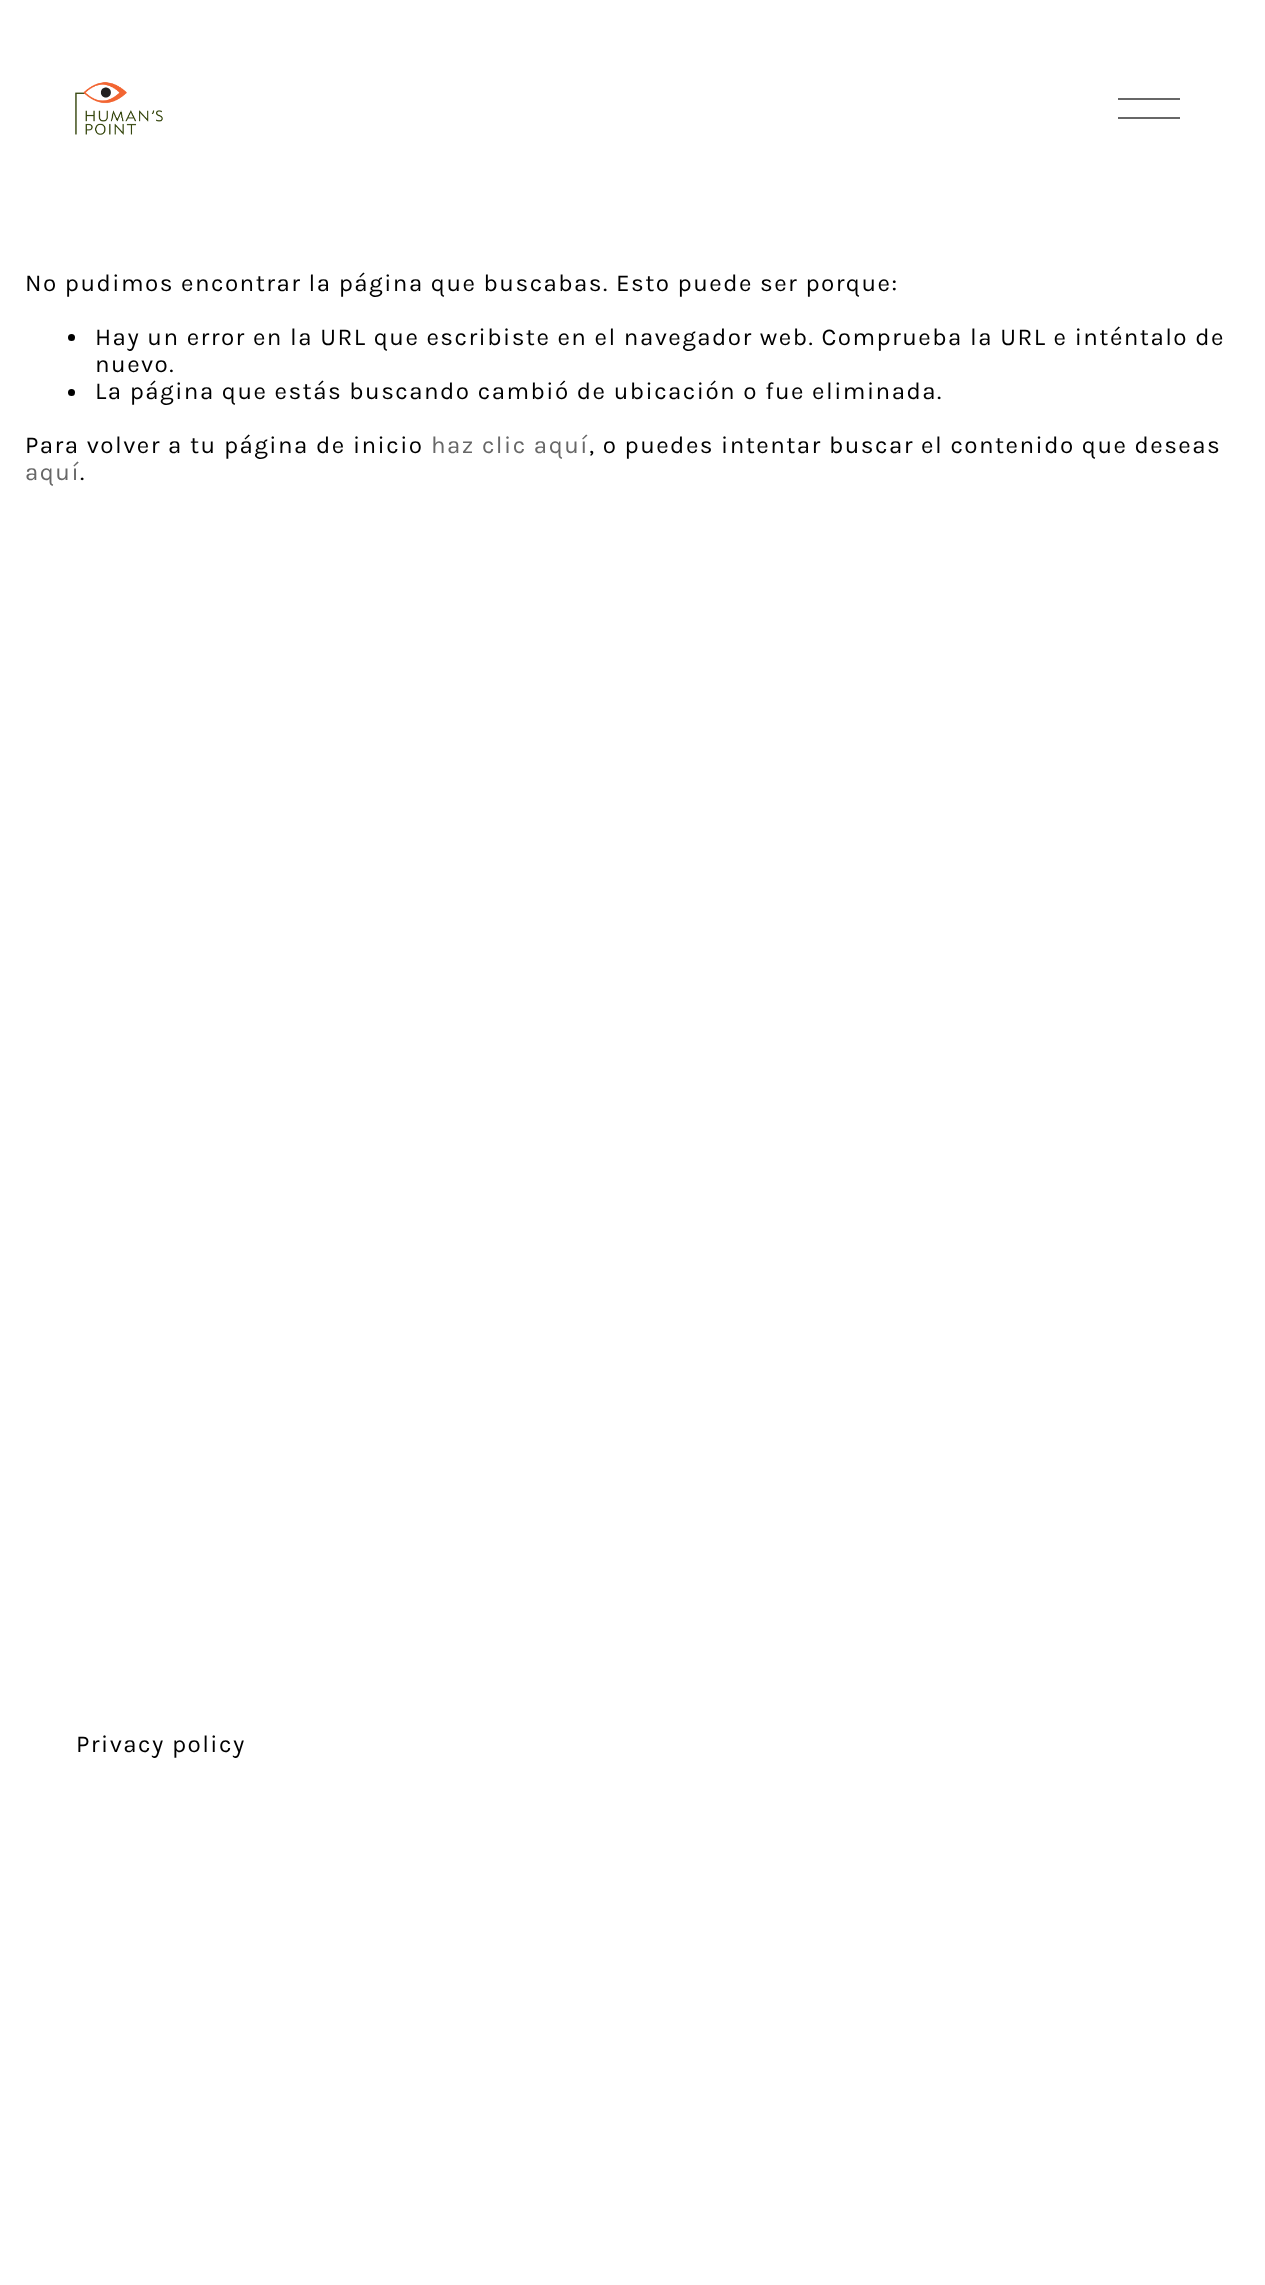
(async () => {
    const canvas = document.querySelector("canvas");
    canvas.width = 1265;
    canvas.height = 2285;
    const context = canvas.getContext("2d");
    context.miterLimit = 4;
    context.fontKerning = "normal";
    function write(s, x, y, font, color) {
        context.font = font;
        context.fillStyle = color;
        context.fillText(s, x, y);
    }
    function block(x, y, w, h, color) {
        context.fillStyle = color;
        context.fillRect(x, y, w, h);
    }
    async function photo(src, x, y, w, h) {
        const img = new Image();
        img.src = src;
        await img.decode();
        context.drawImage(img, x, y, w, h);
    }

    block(0, 0, 1265, 2285, "rgb(255, 255, 255)");
    await photo("media/1.png", 75, 82, 88, 53);
    block(1118, 98, 62, 2, "rgb(103, 103, 103)");
    block(1118, 117, 62, 2, "rgb(103, 103, 103)");
    context.letterSpacing = "1.45px";
    write("No pudimos encontrar la página que buscabas. Esto puede ser porque:", 25, 291, "24.2px Karla", "rgb(0, 0, 0)");
    context.beginPath();
    context.arc(71.5, 337.5, 3.5, 0, Math.PI * 2);
    context.fill();
    write("Hay un error en la URL que escribiste en el navegador web. Comprueba la URL e inténtalo de", 95, 345, "24.2px Karla", "rgb(0, 0, 0)");
    write("nuevo.", 95, 372, "24.2px Karla", "rgb(0, 0, 0)");
    context.beginPath();
    context.arc(71.5, 392.5, 3.5, 0, Math.PI * 2);
    context.fill();
    write("La página que estás buscando cambió de ubicación o fue eliminada.", 95, 399, "24.2px Karla", "rgb(0, 0, 0)");
    write("Para volver a tu página de inicio", 25, 453, "24.2px Karla", "rgb(0, 0, 0)");
    write("haz clic aquí", 431, 453, "24.2px Karla", "rgb(103, 103, 103)");
    write(", o puedes intentar buscar el contenido que deseas", 589, 453, "24.2px Karla", "rgb(0, 0, 0)");
    write("aquí", 25, 480, "24.2px Karla", "rgb(103, 103, 103)");
    write(".", 80, 480, "24.2px Karla", "rgb(0, 0, 0)");
    write("Privacy policy", 76, 1752, "24.2px Karla", "rgb(0, 0, 0)");
})();
